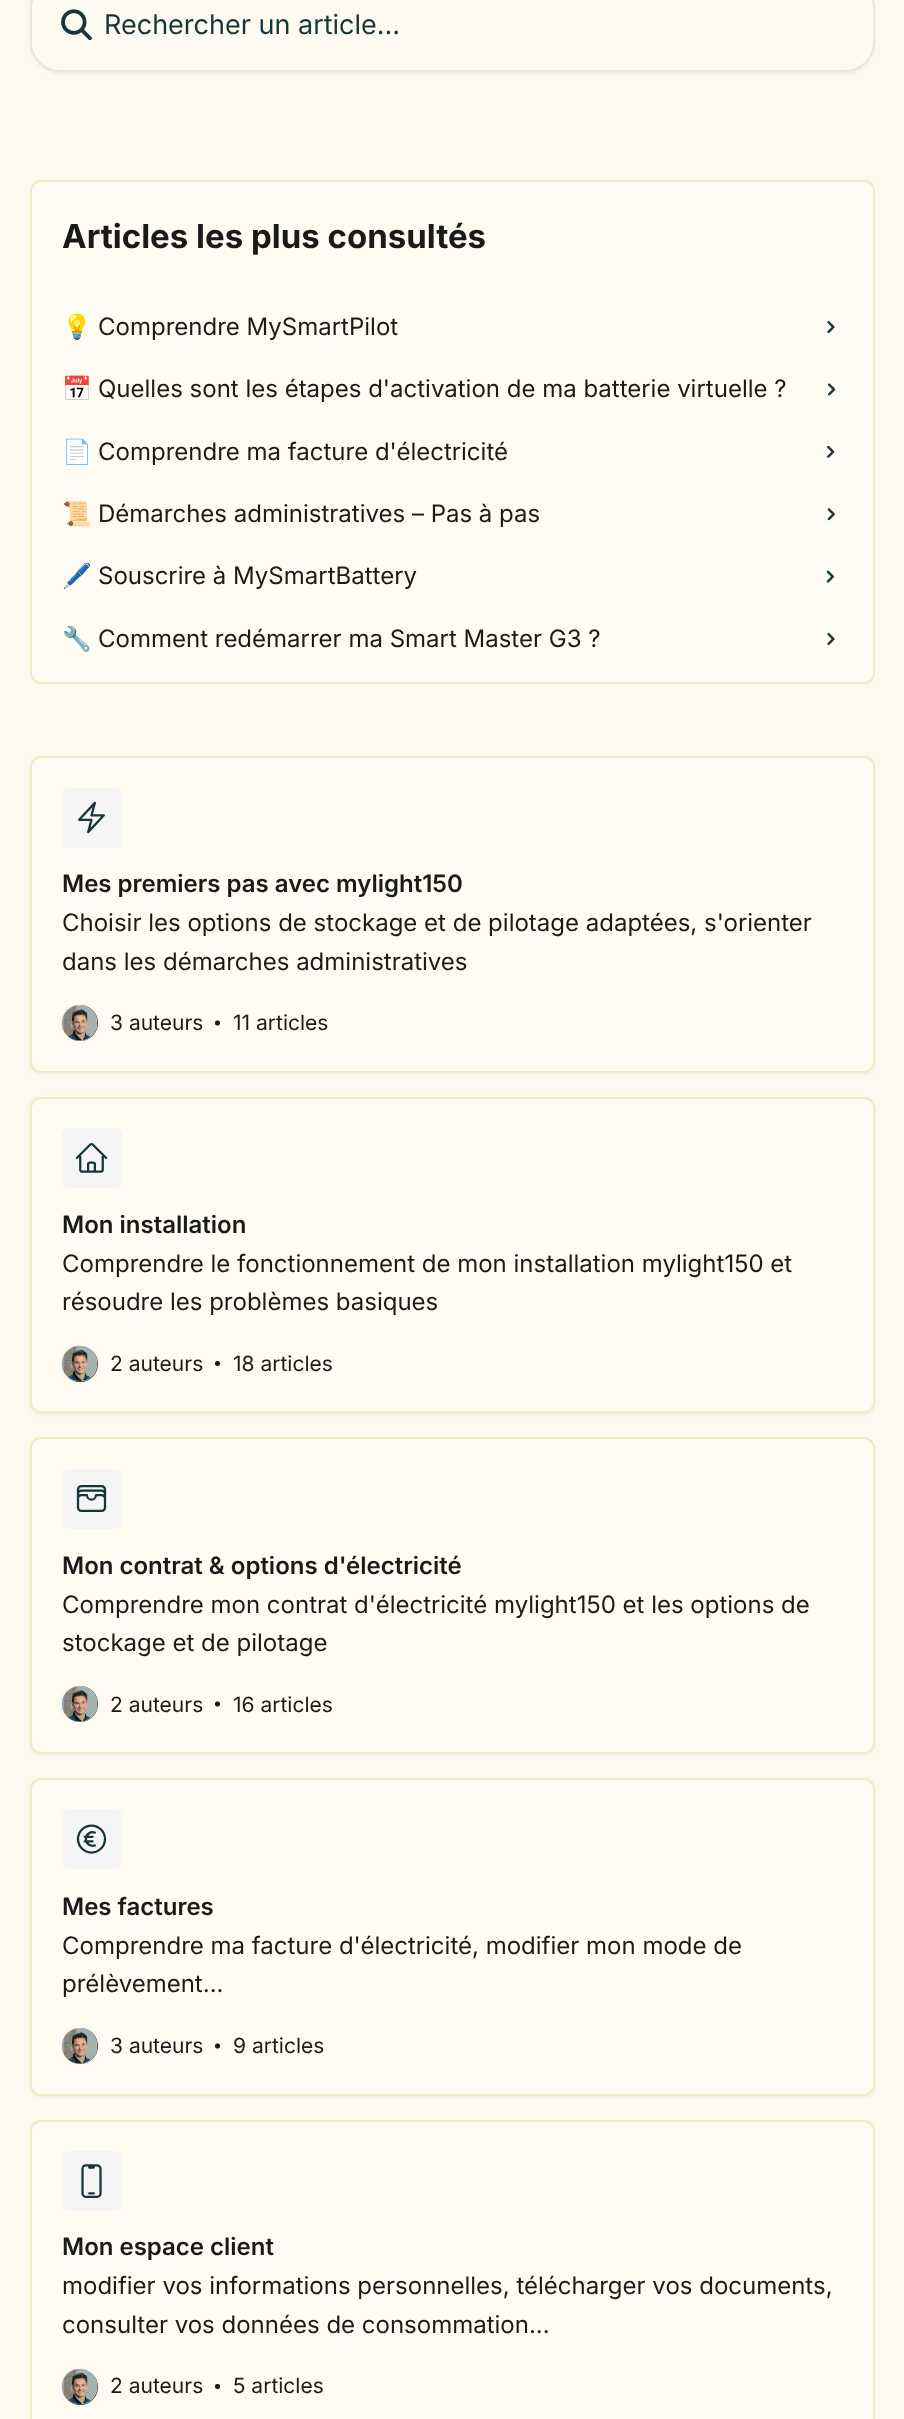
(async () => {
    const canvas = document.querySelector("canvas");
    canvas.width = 904;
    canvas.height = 2419;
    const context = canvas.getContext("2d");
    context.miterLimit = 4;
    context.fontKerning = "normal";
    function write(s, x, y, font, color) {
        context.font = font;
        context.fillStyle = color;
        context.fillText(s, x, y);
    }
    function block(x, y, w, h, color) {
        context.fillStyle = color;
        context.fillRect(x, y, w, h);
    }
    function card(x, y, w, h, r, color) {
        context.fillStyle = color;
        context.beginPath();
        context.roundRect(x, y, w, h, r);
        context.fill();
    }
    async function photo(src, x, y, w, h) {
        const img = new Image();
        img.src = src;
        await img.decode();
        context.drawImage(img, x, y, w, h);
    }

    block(0, 0, 904, 2419, "rgb(252, 249, 238)");
    context.save();
    context.beginPath();
    context.moveTo(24, 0);
    context.lineTo(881, 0);
    context.lineTo(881, 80);
    context.lineTo(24, 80);
    context.closePath();
    context.moveTo(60, -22);
    context.lineTo(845, -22);
    context.bezierCurveTo(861.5, -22, 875, -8.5, 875, 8);
    context.lineTo(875, 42);
    context.bezierCurveTo(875, 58.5, 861.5, 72, 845, 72);
    context.lineTo(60, 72);
    context.bezierCurveTo(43.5, 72, 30, 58.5, 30, 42);
    context.lineTo(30, 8);
    context.bezierCurveTo(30, -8.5, 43.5, -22, 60, -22);
    context.closePath();
    context.clip("evenodd");
    context.fillStyle = "rgba(0, 0, 0, 0.05)";
    context.filter = "blur(1.5px)";
    context.beginPath();
    context.roundRect(30, -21, 845, 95, 30);
    context.fill();
    context.filter = "none";
    context.restore();
    card(30, -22, 845, 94, 30, "rgba(255, 255, 255, 0.2)");
    context.beginPath();
    context.roundRect(31, -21, 843, 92, 29);
    context.strokeStyle = "rgba(0, 0, 0, 0.08)";
    context.lineWidth = 2;
    context.stroke();
    await photo("media/1.png", 61, 9, 31, 32);
    write("Rechercher un article...", 104, 34, "27px Inter", "rgb(23, 53, 58)");
    context.fillStyle = "rgb(253, 251, 242)";
    context.beginPath();
    context.roundRect(31, 181, 843, 502, 10);
    context.fill();
    context.strokeStyle = "rgb(244, 234, 195)";
    context.stroke();
    write("Articles les plus consultés", 62, 248, "bold 33px Inter", "rgb(26, 26, 26)");
    write("💡", 62, 335, "24px Noto Color Emoji", "rgb(26, 26, 26)");
    write("Comprendre MySmartPilot", 98, 335, "24px Inter", "rgb(26, 26, 26)");
    await photo("media/2.png", 827, 321, 8, 12);
    write("📅", 62, 397, "24px Noto Color Emoji", "rgb(26, 26, 26)");
    write("Quelles sont les étapes d'activation de ma batterie virtuelle ?", 98, 397, "24px Inter", "rgb(26, 26, 26)");
    await photo("media/3.png", 828, 383, 8, 13);
    write("📄", 62, 460, "24px Noto Color Emoji", "rgb(26, 26, 26)");
    write("Comprendre ma facture d'électricité", 98, 460, "24px Inter", "rgb(26, 26, 26)");
    await photo("media/4.png", 827, 445, 8, 13);
    write("📜", 62, 522, "24px Noto Color Emoji", "rgb(26, 26, 26)");
    write("Démarches administratives – Pas à pas", 98, 522, "24px Inter", "rgb(26, 26, 26)");
    await photo("media/5.png", 827, 508, 8, 13);
    write("🖊️", 62, 584, "24px Noto Color Emoji", "rgb(26, 26, 26)");
    write("Souscrire à MySmartBattery", 98, 584, "24px Inter", "rgb(26, 26, 26)");
    await photo("media/6.png", 826, 570, 8, 13);
    write("🔧", 62, 647, "24px Noto Color Emoji", "rgb(26, 26, 26)");
    write("Comment redémarrer ma Smart Master G3 ?", 98, 647, "24px Inter", "rgb(26, 26, 26)");
    await photo("media/7.png", 827, 633, 8, 12);
    context.fillStyle = "rgba(0, 0, 0, 0.05)";
    context.filter = "blur(1.5px)";
    context.beginPath();
    context.roundRect(30, 758, 845, 316, 11);
    context.fill();
    context.filter = "none";
    context.fillStyle = "rgb(253, 251, 242)";
    context.beginPath();
    context.roundRect(31, 757, 843, 315, 10);
    context.fill();
    context.stroke();
    card(62, 788, 60, 60, 8, "rgb(245, 245, 245)");
    await photo("media/8.png", 78, 801, 27, 33);
    write("Mes premiers pas avec mylight150", 62, 892, "600 24px Inter", "rgb(26, 26, 26)");
    write("Choisir les options de stockage et de pilotage adaptées, s'orienter", 62, 931, "24px Inter", "rgb(26, 26, 26)");
    write("dans les démarches administratives", 62, 970, "24px Inter", "rgb(26, 26, 26)");
    context.beginPath();
    context.arc(80, 1023, 19.5, 0, Math.PI * 2);
    context.strokeStyle = "rgb(252, 249, 238)";
    context.lineWidth = 3;
    context.stroke();
    context.fillStyle = "rgb(23, 53, 58)";
    context.beginPath();
    context.arc(80, 1023, 18, 0, Math.PI * 2);
    context.fill();
    await photo("media/9.png", 61, 1005, 37, 36);
    write("3 auteurs", 110, 1030, "21px Inter", "rgb(26, 26, 26)");
    await photo("media/10.png", 215, 1020, 6, 6);
    write("11 articles", 233, 1030, "21px Inter", "rgb(26, 26, 26)");
    context.fillStyle = "rgba(0, 0, 0, 0.05)";
    context.filter = "blur(1.5px)";
    context.beginPath();
    context.roundRect(30, 1098, 845, 317, 11);
    context.fill();
    context.filter = "none";
    context.fillStyle = "rgb(253, 251, 242)";
    context.beginPath();
    context.roundRect(31, 1098, 843, 314, 10);
    context.fill();
    context.strokeStyle = "rgb(244, 234, 195)";
    context.lineWidth = 2;
    context.stroke();
    card(62, 1128, 60, 60, 8, "rgb(245, 245, 245)");
    await photo("media/11.png", 75, 1143, 33, 30);
    write("Mon installation", 62, 1233, "600 24px Inter", "rgb(26, 26, 26)");
    write("Comprendre le fonctionnement de mon installation mylight150 et", 62, 1272, "24px Inter", "rgb(26, 26, 26)");
    write("résoudre les problèmes basiques", 62, 1310, "24px Inter", "rgb(26, 26, 26)");
    context.beginPath();
    context.arc(80, 1364, 19.5, 0, Math.PI * 2);
    context.strokeStyle = "rgb(252, 249, 238)";
    context.lineWidth = 3;
    context.stroke();
    context.fillStyle = "rgb(23, 53, 58)";
    context.beginPath();
    context.arc(80, 1364, 18, 0, Math.PI * 2);
    context.fill();
    await photo("media/12.png", 61, 1345, 37, 37);
    write("2 auteurs", 110, 1371, "21px Inter", "rgb(26, 26, 26)");
    await photo("media/13.png", 215, 1361, 6, 6);
    write("18 articles", 233, 1371, "21px Inter", "rgb(26, 26, 26)");
    context.fillStyle = "rgba(0, 0, 0, 0.05)";
    context.filter = "blur(1.5px)";
    context.beginPath();
    context.roundRect(30, 1439, 845, 316, 11);
    context.fill();
    context.filter = "none";
    context.fillStyle = "rgb(253, 251, 242)";
    context.beginPath();
    context.roundRect(31, 1438, 843, 315, 10);
    context.fill();
    context.strokeStyle = "rgb(244, 234, 195)";
    context.lineWidth = 2;
    context.stroke();
    card(62, 1469, 60, 60, 8, "rgb(245, 245, 245)");
    await photo("media/14.png", 76, 1485, 31, 27);
    write("Mon contrat & options d'électricité", 62, 1574, "600 24px Inter", "rgb(26, 26, 26)");
    write("Comprendre mon contrat d'électricité mylight150 et les options de", 62, 1613, "24px Inter", "rgb(26, 26, 26)");
    write("stockage et de pilotage", 62, 1651, "24px Inter", "rgb(26, 26, 26)");
    context.beginPath();
    context.arc(80, 1704, 19.5, 0, Math.PI * 2);
    context.strokeStyle = "rgb(252, 249, 238)";
    context.lineWidth = 3;
    context.stroke();
    context.fillStyle = "rgb(23, 53, 58)";
    context.beginPath();
    context.arc(80, 1704, 18, 0, Math.PI * 2);
    context.fill();
    await photo("media/15.png", 61, 1686, 37, 36);
    write("2 auteurs", 110, 1712, "21px Inter", "rgb(26, 26, 26)");
    await photo("media/10.png", 215, 1701, 6, 6);
    write("16 articles", 233, 1712, "21px Inter", "rgb(26, 26, 26)");
    context.fillStyle = "rgba(0, 0, 0, 0.05)";
    context.filter = "blur(1.5px)";
    context.beginPath();
    context.roundRect(30, 1779, 845, 318, 11);
    context.fill();
    context.filter = "none";
    context.fillStyle = "rgb(253, 251, 242)";
    context.beginPath();
    context.roundRect(31, 1779, 843, 316, 10);
    context.fill();
    context.strokeStyle = "rgb(244, 234, 195)";
    context.lineWidth = 2;
    context.stroke();
    card(62, 1809, 60, 60, 8, "rgb(245, 245, 245)");
    await photo("media/16.png", 76, 1824, 31, 30);
    write("Mes factures", 62, 1915, "600 24px Inter", "rgb(26, 26, 26)");
    write("Comprendre ma facture d'électricité, modifier mon mode de", 62, 1954, "24px Inter", "rgb(26, 26, 26)");
    write("prélèvement...", 62, 1992, "24px Inter", "rgb(26, 26, 26)");
    context.beginPath();
    context.arc(80, 2046, 19.5, 0, Math.PI * 2);
    context.strokeStyle = "rgb(252, 249, 238)";
    context.lineWidth = 3;
    context.stroke();
    context.fillStyle = "rgb(23, 53, 58)";
    context.beginPath();
    context.arc(80, 2046, 18, 0, Math.PI * 2);
    context.fill();
    await photo("media/9.png", 61, 2028, 37, 36);
    write("3 auteurs", 110, 2053, "21px Inter", "rgb(26, 26, 26)");
    await photo("media/10.png", 215, 2043, 6, 6);
    write("9 articles", 233, 2053, "21px Inter", "rgb(26, 26, 26)");
    context.fillStyle = "rgb(253, 251, 242)";
    context.beginPath();
    context.roundRect(31, 2121, 843, 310, 10);
    context.fill();
    context.strokeStyle = "rgb(244, 234, 195)";
    context.lineWidth = 2;
    context.stroke();
    card(62, 2151, 60, 60, 8, "rgb(245, 245, 245)");
    await photo("media/17.png", 81, 2164, 21, 34);
    write("Mon espace client", 62, 2255, "600 24px Inter", "rgb(26, 26, 26)");
    write("modifier vos informations personnelles, télécharger vos documents,", 62, 2294, "24px Inter", "rgb(26, 26, 26)");
    write("consulter vos données de consommation...", 62, 2333, "24px Inter", "rgb(26, 26, 26)");
    context.beginPath();
    context.arc(80, 2387, 19.5, 0, Math.PI * 2);
    context.strokeStyle = "rgb(252, 249, 238)";
    context.lineWidth = 3;
    context.stroke();
    context.fillStyle = "rgb(23, 53, 58)";
    context.beginPath();
    context.arc(80, 2387, 18, 0, Math.PI * 2);
    context.fill();
    await photo("media/18.png", 61, 2368, 37, 37);
    write("2 auteurs", 110, 2393, "21px Inter", "rgb(26, 26, 26)");
    await photo("media/13.png", 215, 2384, 6, 6);
    write("5 articles", 233, 2393, "21px Inter", "rgb(26, 26, 26)");
})();
